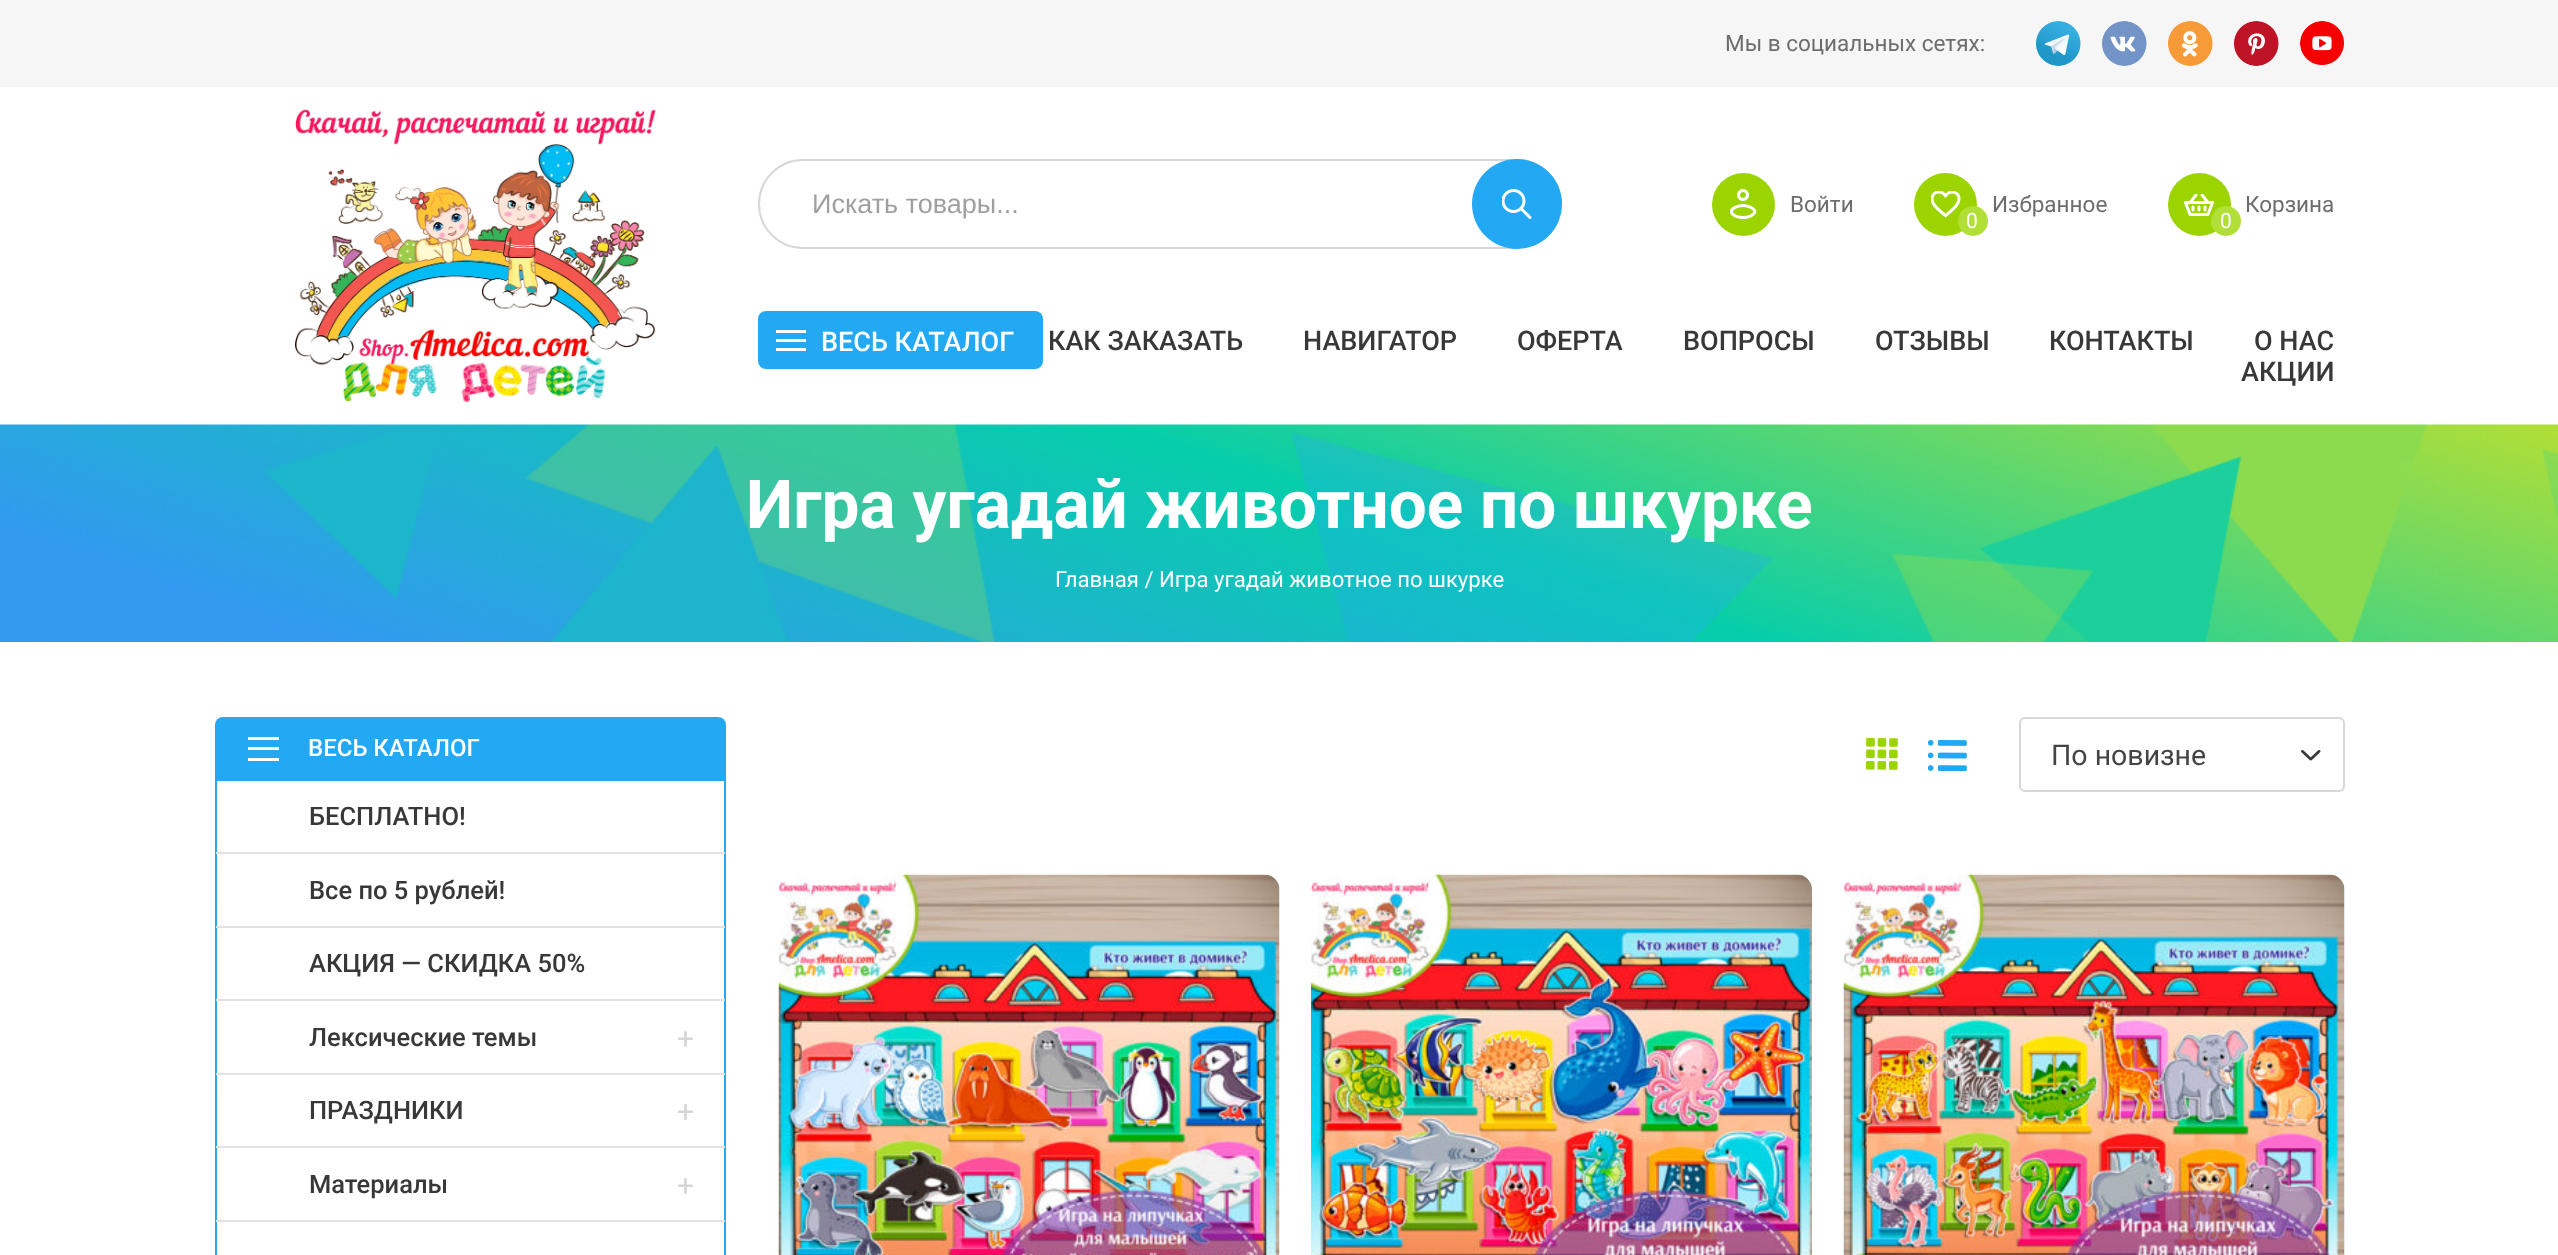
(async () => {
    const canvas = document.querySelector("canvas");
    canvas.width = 2558;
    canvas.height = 1255;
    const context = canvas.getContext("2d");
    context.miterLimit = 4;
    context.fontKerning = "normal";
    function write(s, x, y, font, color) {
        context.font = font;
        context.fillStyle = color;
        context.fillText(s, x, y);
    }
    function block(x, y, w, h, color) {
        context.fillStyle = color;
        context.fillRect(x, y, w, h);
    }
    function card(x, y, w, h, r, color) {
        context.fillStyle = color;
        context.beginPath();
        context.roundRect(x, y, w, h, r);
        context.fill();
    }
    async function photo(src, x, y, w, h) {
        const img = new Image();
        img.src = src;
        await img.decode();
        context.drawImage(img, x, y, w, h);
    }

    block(0, 0, 2558, 1255, "rgb(255, 255, 255)");
    block(0, 0, 2558, 87, "rgb(246, 246, 246)");
    write("Мы в социальных сетях:", 1725, 51, "22.5px Roboto", "rgb(109, 109, 109)");
    await photo("media/1.png", 2036, 21, 45, 45);
    await photo("media/2.png", 2102, 21, 45, 45);
    await photo("media/3.png", 2168, 21, 45, 45);
    await photo("media/4.png", 2234, 21, 45, 45);
    await photo("media/5.png", 2300, 21, 44, 44);
    await photo("media/6.png", 295, 109, 361, 293);
    context.beginPath();
    context.roundRect(759, 160, 802, 88, 44);
    context.strokeStyle = "rgb(215, 215, 215)";
    context.lineWidth = 2;
    context.stroke();
    write("Искать товары...", 812, 213, "27px Liberation Sans", "rgb(159, 159, 159)");
    context.fillStyle = "rgb(35, 169, 244)";
    context.beginPath();
    context.arc(1517, 204, 45, 0, Math.PI * 2);
    context.fill();
    await photo("media/7.png", 1502, 189, 30, 30);
    context.fillStyle = "rgb(155, 212, 0)";
    context.beginPath();
    context.arc(1743.5, 204.5, 31.5, 0, Math.PI * 2);
    context.fill();
    await photo("media/8.png", 1730, 189, 27, 30);
    write("Войти", 1790, 212, "22.5px Roboto", "rgb(109, 109, 109)");
    write("Избранное", 1992, 212, "22.5px Roboto", "rgb(109, 109, 109)");
    context.fillStyle = "rgb(155, 212, 0)";
    context.beginPath();
    context.arc(1945.5, 204.5, 31.5, 0, Math.PI * 2);
    context.fill();
    await photo("media/9.png", 1931, 191, 30, 27);
    context.fillStyle = "rgb(177, 223, 54)";
    context.beginPath();
    context.arc(1973, 221, 15, 0, Math.PI * 2);
    context.fill();
    write("0", 1966, 228, "21px Roboto", "rgb(255, 255, 255)");
    write("Корзина", 2245, 212, "22.5px Roboto", "rgb(109, 109, 109)");
    context.fillStyle = "rgb(155, 212, 0)";
    context.beginPath();
    context.arc(2199.5, 204.5, 31.5, 0, Math.PI * 2);
    context.fill();
    await photo("media/10.png", 2184, 194, 30, 22);
    context.fillStyle = "rgb(177, 223, 54)";
    context.beginPath();
    context.arc(2226, 221, 15, 0, Math.PI * 2);
    context.fill();
    write("0", 2220, 228, "21px Roboto", "rgb(255, 255, 255)");
    card(758, 311, 285, 58, 8, "rgb(35, 169, 244)");
    block(776, 330, 30, 3, "rgb(255, 255, 255)");
    block(776, 339, 30, 3, "rgb(255, 255, 255)");
    block(776, 348, 30, 3, "rgb(255, 255, 255)");
    write("ВЕСЬ КАТАЛОГ", 821, 351, "500 27px Roboto", "rgb(255, 255, 255)");
    write("КАК ЗАКАЗАТЬ", 1048, 350, "500 27px Roboto", "rgb(56, 56, 56)");
    write("НАВИГАТОР", 1303, 350, "500 27px Roboto", "rgb(56, 56, 56)");
    write("ОФЕРТА", 1517, 350, "500 27px Roboto", "rgb(56, 56, 56)");
    write("ВОПРОСЫ", 1683, 350, "500 27px Roboto", "rgb(56, 56, 56)");
    write("ОТЗЫВЫ", 1875, 350, "500 27px Roboto", "rgb(56, 56, 56)");
    write("КОНТАКТЫ", 2049, 350, "500 27px Roboto", "rgb(56, 56, 56)");
    write("О НАС", 2254, 350, "500 27px Roboto", "rgb(56, 56, 56)");
    write("АКЦИИ", 2241, 381, "500 27px Roboto", "rgb(56, 56, 56)");
    await photo("media/11.png", 0, 424, 2558, 218);
    write("Игра угадай животное по шкурке", 746, 528, "bold 67.5px Roboto", "rgb(255, 255, 255)");
    write("Главная / Игра угадай животное по шкурке", 1055, 587, "22.1px Roboto", "rgb(255, 255, 255)");
    context.fillStyle = "rgb(35, 169, 244)";
    context.beginPath();
    context.roundRect(215, 717, 511, 62, [8, 8, 0, 0]);
    context.fill();
    block(248, 737, 31, 3, "rgb(255, 255, 255)");
    block(248, 747, 31, 3, "rgb(255, 255, 255)");
    block(248, 758, 31, 3, "rgb(255, 255, 255)");
    write("ВЕСЬ КАТАЛОГ", 308, 756, "500 24px Roboto", "rgb(255, 255, 255)");
    context.strokeStyle = "rgb(35, 169, 244)";
    context.strokeRect(216, 780, 509, 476);
    block(216, 852, 509, 2, "rgb(226, 226, 226)");
    write("БЕСПЛАТНО!", 309, 825, "500 25.5px Roboto", "rgb(56, 56, 56)");
    block(216, 926, 509, 2, "rgb(226, 226, 226)");
    write("Все по 5 рублей!", 309, 899, "500 25.5px Roboto", "rgb(56, 56, 56)");
    block(216, 999, 509, 2, "rgb(226, 226, 226)");
    write("АКЦИЯ — СКИДКА 50%", 309, 972, "500 25.5px Roboto", "rgb(56, 56, 56)");
    block(216, 1073, 509, 2, "rgb(226, 226, 226)");
    write("Лексические темы", 309, 1046, "500 25.5px Roboto", "rgb(56, 56, 56)");
    write("+", 677, 1049, "30px Roboto", "rgb(214, 214, 214)");
    block(216, 1146, 509, 2, "rgb(226, 226, 226)");
    write("ПРАЗДНИКИ", 309, 1119, "500 25.5px Roboto", "rgb(56, 56, 56)");
    write("+", 677, 1122, "30px Roboto", "rgb(214, 214, 214)");
    block(216, 1220, 509, 2, "rgb(226, 226, 226)");
    write("Материалы", 309, 1193, "500 25.5px Roboto", "rgb(56, 56, 56)");
    write("+", 677, 1196, "30px Roboto", "rgb(214, 214, 214)");
    await photo("media/12.png", 1866, 738, 32, 32);
    await photo("media/13.png", 1928, 740, 39, 31);
    context.beginPath();
    context.roundRect(2020, 718, 324, 73, 5);
    context.strokeStyle = "rgb(215, 215, 215)";
    context.stroke();
    write("По новизне", 2051, 765, "28.5px Roboto", "rgb(68, 68, 68)");
    await photo("media/14.png", 2301, 750, 20, 11);
    await photo("media/15.png", 778, 874, 502, 381);
    await photo("media/16.png", 1311, 874, 501, 381);
    await photo("media/17.png", 1843, 874, 502, 381);
})();
